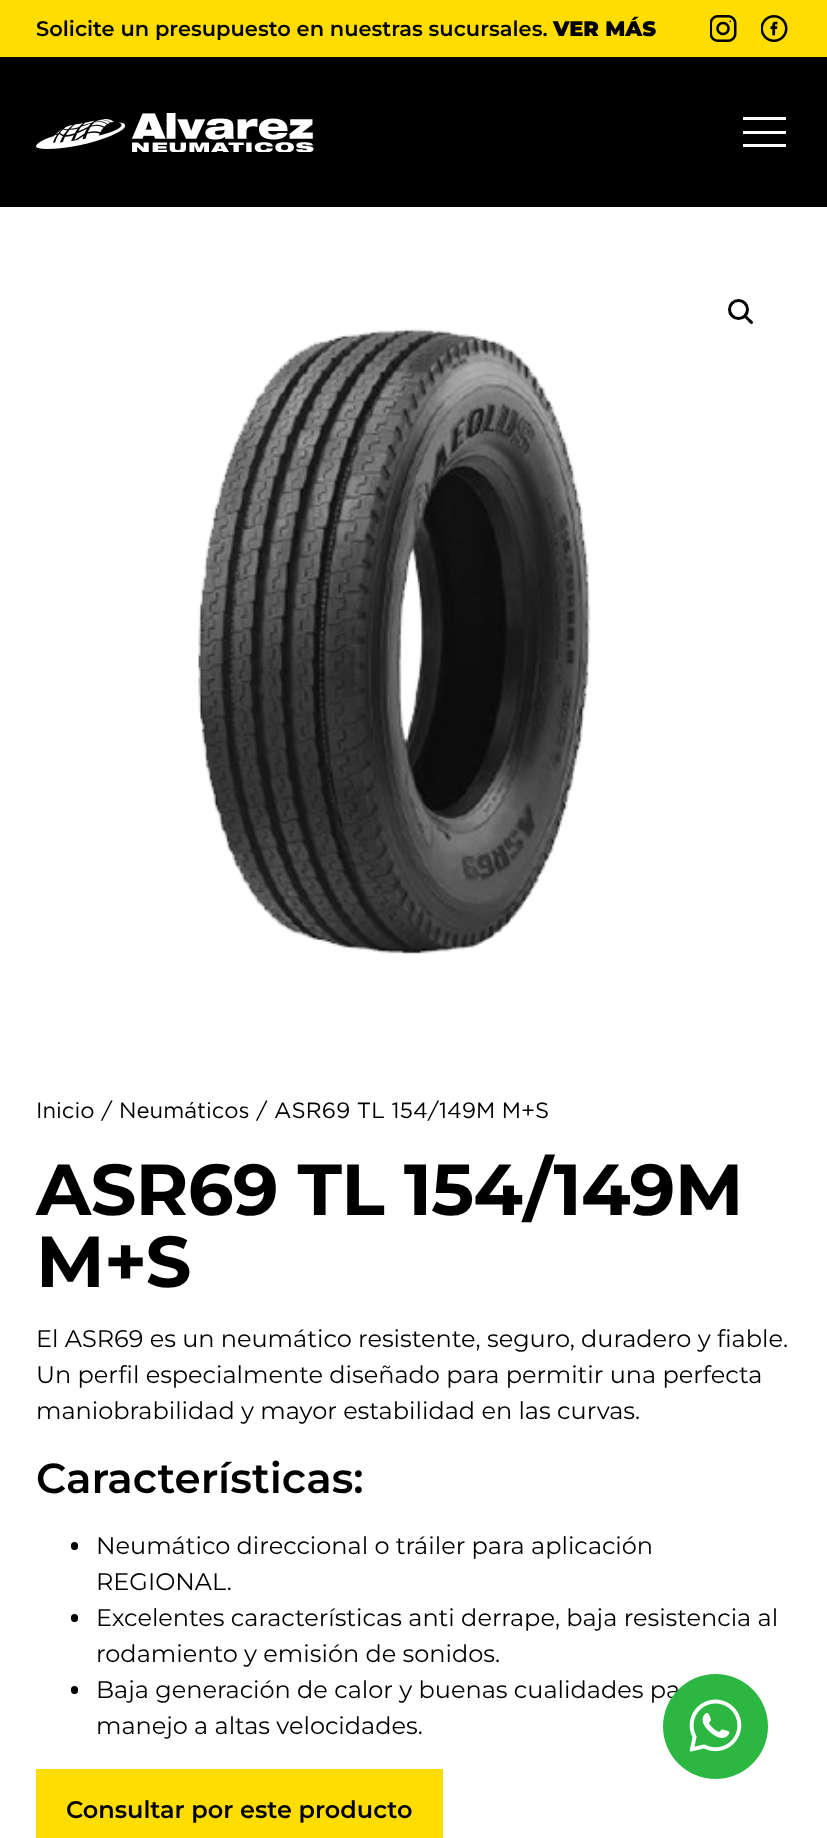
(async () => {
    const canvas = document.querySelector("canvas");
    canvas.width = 827;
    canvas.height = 1838;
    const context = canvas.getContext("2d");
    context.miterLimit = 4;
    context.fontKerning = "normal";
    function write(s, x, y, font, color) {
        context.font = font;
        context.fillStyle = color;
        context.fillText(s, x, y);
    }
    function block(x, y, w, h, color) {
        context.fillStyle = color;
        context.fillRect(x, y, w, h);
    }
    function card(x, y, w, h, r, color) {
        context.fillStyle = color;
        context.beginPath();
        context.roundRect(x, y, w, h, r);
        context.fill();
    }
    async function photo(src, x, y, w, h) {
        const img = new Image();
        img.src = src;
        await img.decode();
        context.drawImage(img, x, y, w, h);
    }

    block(0, 0, 827, 1838, "rgb(255, 255, 255)");
    block(0, 0, 827, 57, "rgb(255, 221, 0)");
    write("Solicite un presupuesto en nuestras sucursales.", 36, 36, "600 21px Montserrat", "rgb(0, 0, 0)");
    write("VER MÁS", 553, 36, "900 21px Montserrat", "rgb(0, 0, 0)");
    await photo("media/1.png", 710, 15, 27, 27);
    await photo("media/2.png", 761, 15, 27, 27);
    block(0, 57, 827, 150, "rgb(0, 0, 0)");
    await photo("media/3.png", 36, 113, 278, 39);
    block(743, 117, 43, 3, "rgb(255, 255, 255)");
    block(743, 131, 43, 3, "rgb(255, 255, 255)");
    block(743, 144, 43, 3, "rgb(255, 255, 255)");
    context.beginPath();
    context.arc(738.5, 309.5, 9, 0, Math.PI * 2);
    context.strokeStyle = "rgb(0, 0, 0)";
    context.lineWidth = 3;
    context.stroke();
    context.fillStyle = "rgb(0, 0, 0)";
    context.beginPath();
    context.moveTo(744.5, 315.5);
    context.bezierCurveTo(746, 313.5, 748.5, 317.5, 749.5, 318.5);
    context.bezierCurveTo(750.5, 319.5, 754.5, 322, 752.5, 323.5);
    context.bezierCurveTo(751, 325.5, 748.5, 321.5, 747.5, 320.5);
    context.bezierCurveTo(746.5, 319.5, 742.5, 317, 744.5, 315.5);
    context.closePath();
    context.fill();
    await photo("media/4.png", 198, 328, 393, 627);
    write("Inicio / Neumáticos / ASR69 TL 154/149M M+S", 36, 1118, "22.1px Gotham", "rgb(0, 0, 0)");
    context.letterSpacing = "-0.75px";
    write("ASR69 TL 154/149M", 36, 1215, "bold 72px Montserrat", "rgb(0, 0, 0)");
    write("M+S", 36, 1287, "bold 72px Montserrat", "rgb(0, 0, 0)");
    context.letterSpacing = "0px";
    write("El ASR69 es un neumático resistente, seguro, duradero y fiable.", 36, 1347, "24px Montserrat", "rgb(0, 0, 0)");
    write("Un perfil especialmente diseñado para permitir una perfecta", 36, 1383, "24px Montserrat", "rgb(0, 0, 0)");
    write("maniobrabilidad y mayor estabilidad en las curvas.", 36, 1419, "24px Montserrat", "rgb(0, 0, 0)");
    write("Características:", 36, 1493, "600 42px Montserrat", "rgb(0, 0, 0)");
    card(71, 1542, 7, 8, 3.5, "rgb(0, 0, 0)");
    write("Neumático direccional o tráiler para aplicación", 96, 1554, "24px Montserrat", "rgb(0, 0, 0)");
    write("REGIONAL.", 96, 1590, "24px Montserrat", "rgb(0, 0, 0)");
    card(71, 1614, 7, 8, 3.5, "rgb(0, 0, 0)");
    write("Excelentes características anti derrape, baja resistencia al", 96, 1626, "24px Montserrat", "rgb(0, 0, 0)");
    write("rodamiento y emisión de sonidos.", 96, 1662, "24px Montserrat", "rgb(0, 0, 0)");
    card(71, 1686, 7, 8, 3.5, "rgb(0, 0, 0)");
    write("Baja generación de calor y buenas cualidades pa", 96, 1698, "24px Montserrat", "rgb(0, 0, 0)");
    write("manejo a altas velocidades.", 96, 1734, "24px Montserrat", "rgb(0, 0, 0)");
    block(36, 1769, 407, 69, "rgb(255, 221, 0)");
    write("Consultar por este producto", 66, 1818, "600 24px Montserrat", "rgb(0, 0, 0)");
    await photo("media/5.png", 663, 1674, 105, 105);
})();
